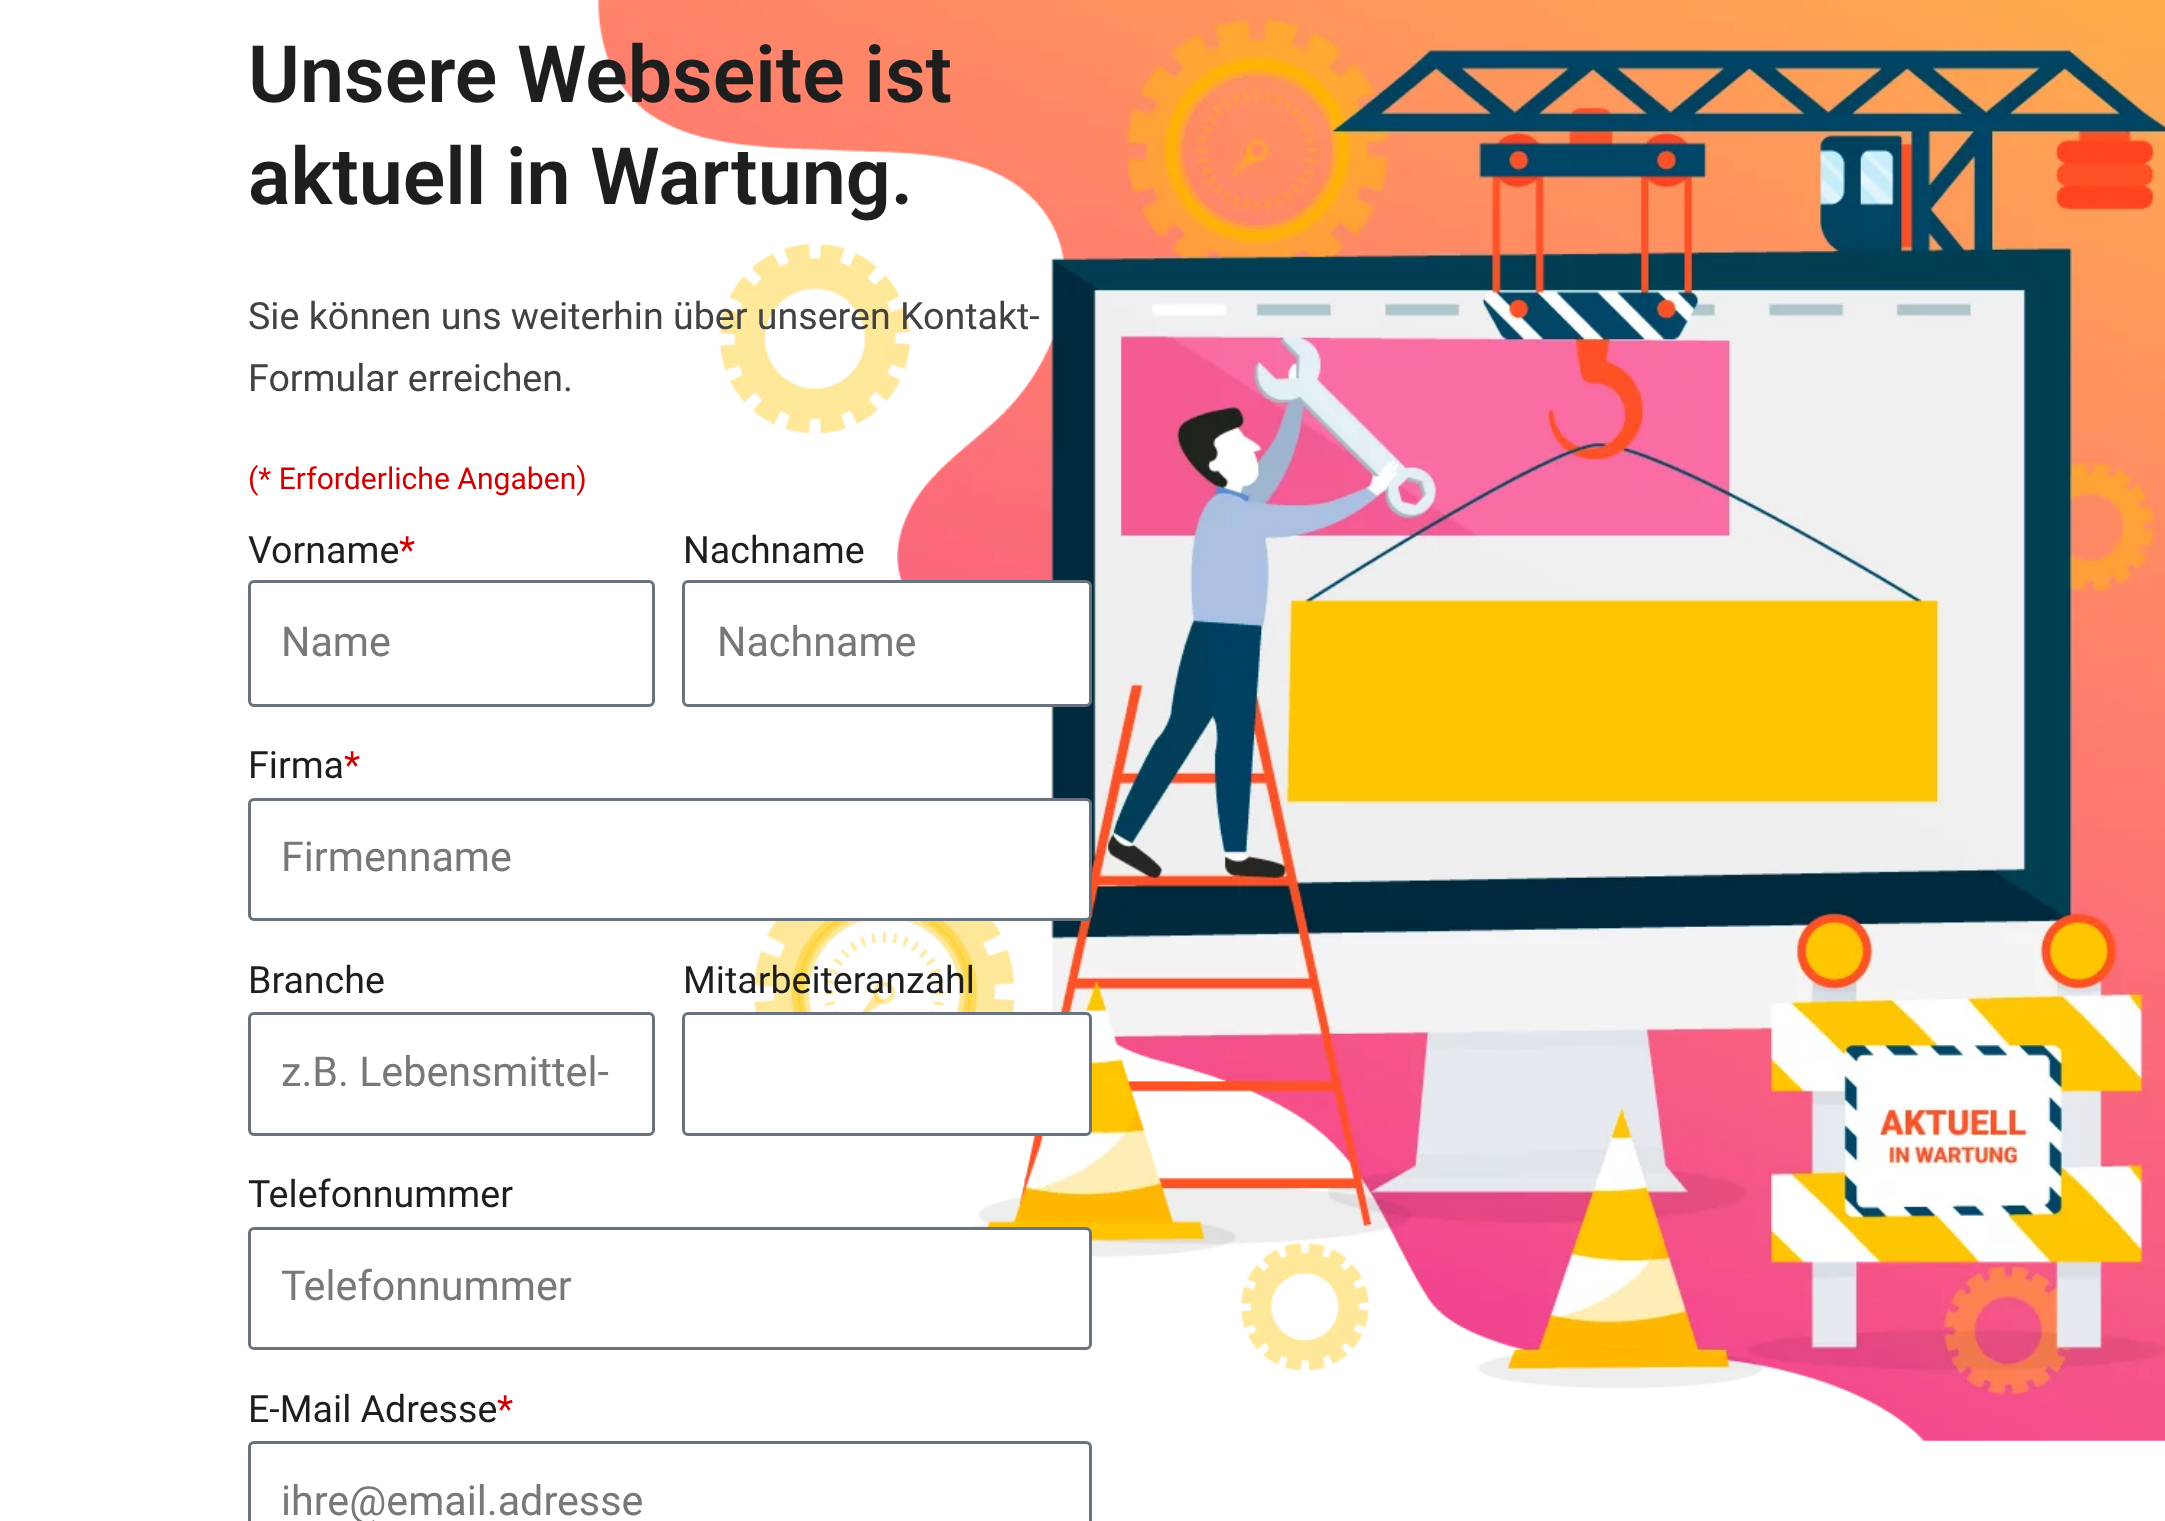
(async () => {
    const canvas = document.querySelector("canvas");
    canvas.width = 2165;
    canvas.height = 1521;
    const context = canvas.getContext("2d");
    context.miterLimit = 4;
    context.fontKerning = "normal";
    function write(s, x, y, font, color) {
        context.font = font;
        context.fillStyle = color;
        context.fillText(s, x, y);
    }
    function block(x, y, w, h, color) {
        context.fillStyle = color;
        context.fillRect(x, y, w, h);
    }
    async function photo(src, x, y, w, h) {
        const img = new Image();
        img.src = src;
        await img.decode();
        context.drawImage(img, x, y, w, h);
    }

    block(0, 0, 2165, 1521, "rgb(255, 255, 255)");
    await photo("media/1.png", 597, 0, 1568, 1441);
    write("Unsere Webseite ist", 248, 102, "600 79px Roboto", "rgb(30, 30, 30)");
    write("aktuell in Wartung.", 248, 204, "600 79px Roboto", "rgb(30, 30, 30)");
    write("Sie können uns weiterhin über unseren Kontakt-", 248, 329, "37.6px Roboto", "rgb(66, 66, 66)");
    write("Formular erreichen.", 248, 391, "37.6px Roboto", "rgb(66, 66, 66)");
    write("(* Erforderliche Angaben)", 248, 489, "30.1px Roboto", "rgb(208, 0, 0)");
    write("Vorname", 248, 563, "37.6px Roboto", "rgb(30, 30, 30)");
    write("*", 399, 563, "37.6px Roboto", "rgb(208, 0, 0)");
    context.beginPath();
    context.roundRect(249.5, 581.5, 404, 124, 4.5);
    context.strokeStyle = "rgb(105, 114, 125)";
    context.lineWidth = 3;
    context.stroke();
    write("Name", 281, 656, "41.25px Roboto", "rgb(120, 120, 120)");
    write("Nachname", 683, 563, "37.6px Roboto", "rgb(30, 30, 30)");
    context.fillStyle = "rgb(255, 255, 255)";
    context.beginPath();
    context.roundRect(683.5, 581.5, 407, 124, 4.5);
    context.fill();
    context.stroke();
    write("Nachname", 717, 656, "41.25px Roboto", "rgb(120, 120, 120)");
    write("Firma", 248, 778, "37.6px Roboto", "rgb(30, 30, 30)");
    write("*", 344, 778, "37.6px Roboto", "rgb(208, 0, 0)");
    context.fillStyle = "rgb(255, 255, 255)";
    context.beginPath();
    context.roundRect(249.5, 799.5, 841, 120, 4.5);
    context.fill();
    context.stroke();
    write("Firmenname", 281, 871, "41.25px Roboto", "rgb(120, 120, 120)");
    write("Branche", 248, 993, "37.6px Roboto", "rgb(30, 30, 30)");
    context.beginPath();
    context.roundRect(249.5, 1013.5, 404, 121, 4.5);
    context.stroke();
    write("z.B. Lebensmittel-", 281, 1086, "41.25px Roboto", "rgb(120, 120, 120)");
    write("Mitarbeiteranzahl", 683, 993, "37.6px Roboto", "rgb(30, 30, 30)");
    context.fillStyle = "rgb(255, 255, 255)";
    context.beginPath();
    context.roundRect(683.5, 1013.5, 407, 121, 4.5);
    context.fill();
    context.stroke();
    write("Telefonnummer", 248, 1207, "37.6px Roboto", "rgb(30, 30, 30)");
    context.fillStyle = "rgb(255, 255, 255)";
    context.beginPath();
    context.roundRect(249.5, 1228.5, 841, 120, 4.5);
    context.fill();
    context.stroke();
    write("Telefonnummer", 281, 1300, "41.25px Roboto", "rgb(120, 120, 120)");
    write("E-Mail Adresse", 248, 1422, "37.6px Roboto", "rgb(30, 30, 30)");
    write("*", 497, 1422, "37.6px Roboto", "rgb(208, 0, 0)");
    context.beginPath();
    context.roundRect(249.5, 1442.5, 841, 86, 4.5);
    context.stroke();
    write("ihre@email.adresse", 281, 1515, "41.25px Roboto", "rgb(120, 120, 120)");
})();
